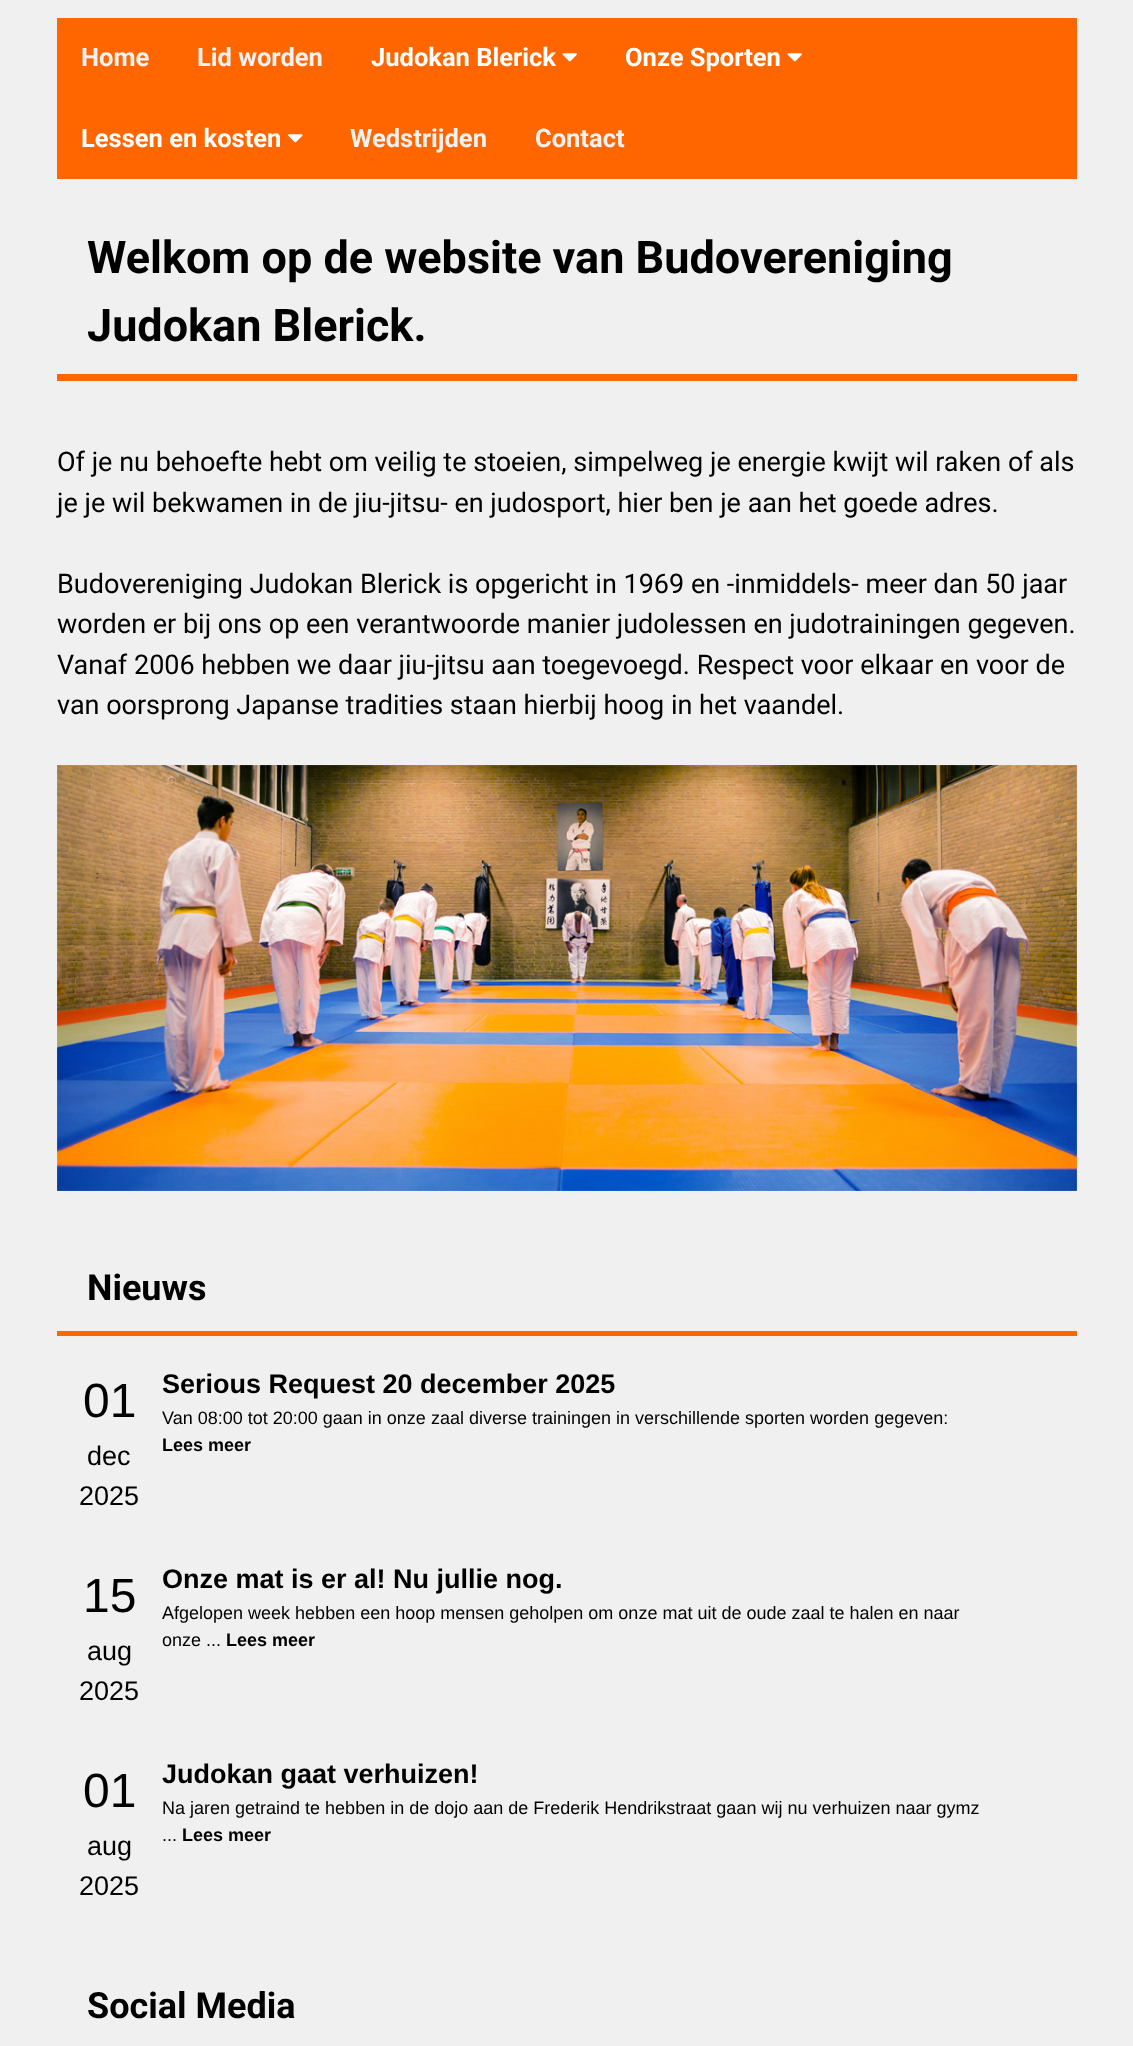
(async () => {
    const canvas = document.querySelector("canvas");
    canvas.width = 1133;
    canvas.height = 2046;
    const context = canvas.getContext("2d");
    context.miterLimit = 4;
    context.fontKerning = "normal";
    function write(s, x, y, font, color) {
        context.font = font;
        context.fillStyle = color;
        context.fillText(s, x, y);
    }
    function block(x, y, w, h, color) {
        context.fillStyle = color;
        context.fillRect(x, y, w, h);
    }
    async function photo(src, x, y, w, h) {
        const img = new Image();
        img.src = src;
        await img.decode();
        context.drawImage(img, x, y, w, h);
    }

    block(0, 0, 1133, 2046, "rgb(240, 240, 240)");
    block(57, 18, 1020, 161, "rgb(255, 102, 0)");
    write("Home", 81, 66, "bold 25.5px Roboto", "rgb(242, 242, 242)");
    write("Lid worden", 197, 66, "bold 25.5px Roboto", "rgb(242, 242, 242)");
    write("Judokan Blerick", 371, 66, "bold 25.5px Roboto", "rgb(255, 255, 255)");
    await photo("media/1.png", 562, 53, 15, 9);
    write("Onze Sporten", 625, 66, "bold 25.5px Roboto", "rgb(255, 255, 255)");
    await photo("media/1.png", 787, 53, 15, 9);
    write("Lessen en kosten", 81, 147, "bold 25.5px Roboto", "rgb(255, 255, 255)");
    await photo("media/2.png", 288, 134, 15, 9);
    write("Wedstrijden", 350, 147, "bold 25.5px Roboto", "rgb(242, 242, 242)");
    write("Contact", 535, 147, "bold 25.5px Roboto", "rgb(242, 242, 242)");
    block(57, 374, 1020, 7, "rgb(255, 102, 0)");
    write("Welkom op de website van Budovereniging", 87, 273, "bold 45px Roboto", "rgb(0, 0, 0)");
    write("Judokan Blerick.", 87, 341, "bold 45px Roboto", "rgb(0, 0, 0)");
    write("Of je nu behoefte hebt om veilig te stoeien, simpelweg je energie kwijt wil raken of als", 57, 471, "27px Roboto", "rgb(0, 0, 0)");
    write("je je wil bekwamen in de jiu-jitsu- en judosport, hier ben je aan het goede adres.", 57, 512, "27px Roboto", "rgb(0, 0, 0)");
    write("Budovereniging Judokan Blerick is opgericht in 1969 en -inmiddels- meer dan 50 jaar", 57, 593, "27px Roboto", "rgb(0, 0, 0)");
    write("worden er bij ons op een verantwoorde manier judolessen en judotrainingen gegeven.", 57, 633, "27px Roboto", "rgb(0, 0, 0)");
    write("Vanaf 2006 hebben we daar jiu-jitsu aan toegevoegd. Respect voor elkaar en voor de", 57, 674, "27px Roboto", "rgb(0, 0, 0)");
    write("van oorsprong Japanse tradities staan hierbij hoog in het vaandel.", 57, 714, "27px Roboto", "rgb(0, 0, 0)");
    await photo("media/3.png", 57, 765, 1020, 426);
    block(57, 1331, 1020, 5, "rgb(255, 102, 0)");
    write("Nieuws", 87, 1300, "bold 36px Roboto", "rgb(0, 0, 0)");
    write("01", 83, 1417, "48px Liberation Sans", "rgb(0, 0, 0)");
    write("dec", 87, 1465, "27px Liberation Sans", "rgb(0, 0, 0)");
    write("2025", 79, 1505, "27px Liberation Sans", "rgb(0, 0, 0)");
    write("Serious Request 20 december 2025", 162, 1393, "bold 27px Liberation Sans", "rgb(0, 0, 0)");
    write("Van 08:00 tot 20:00 gaan in onze zaal diverse trainingen in verschillende sporten worden gegeven:", 162, 1424, "18px Liberation Sans", "rgb(0, 0, 0)");
    write("Lees meer", 162, 1451, "bold 18px Liberation Sans", "rgb(0, 0, 0)");
    write("15", 83, 1612, "48px Liberation Sans", "rgb(0, 0, 0)");
    write("aug", 87, 1660, "27px Liberation Sans", "rgb(0, 0, 0)");
    write("2025", 79, 1700, "27px Liberation Sans", "rgb(0, 0, 0)");
    write("Onze mat is er al! Nu jullie nog.", 162, 1588, "bold 27px Liberation Sans", "rgb(0, 0, 0)");
    write("Afgelopen week hebben een hoop mensen geholpen om onze mat uit de oude zaal te halen en naar", 162, 1619, "18px Liberation Sans", "rgb(0, 0, 0)");
    write("onze ...", 162, 1646, "18px Liberation Sans", "rgb(0, 0, 0)");
    write("Lees meer", 226, 1646, "bold 18px Liberation Sans", "rgb(0, 0, 0)");
    write("01", 83, 1807, "48px Liberation Sans", "rgb(0, 0, 0)");
    write("aug", 87, 1855, "27px Liberation Sans", "rgb(0, 0, 0)");
    write("2025", 79, 1895, "27px Liberation Sans", "rgb(0, 0, 0)");
    write("Judokan gaat verhuizen!", 162, 1783, "bold 27px Liberation Sans", "rgb(0, 0, 0)");
    write("Na jaren getraind te hebben in de dojo aan de Frederik Hendrikstraat gaan wij nu verhuizen naar gymz", 162, 1814, "18px Liberation Sans", "rgb(0, 0, 0)");
    write("...", 162, 1841, "18px Liberation Sans", "rgb(0, 0, 0)");
    write("Lees meer", 182, 1841, "bold 18px Liberation Sans", "rgb(0, 0, 0)");
    write("Social Media", 87, 2018, "bold 36px Roboto", "rgb(0, 0, 0)");
})();
